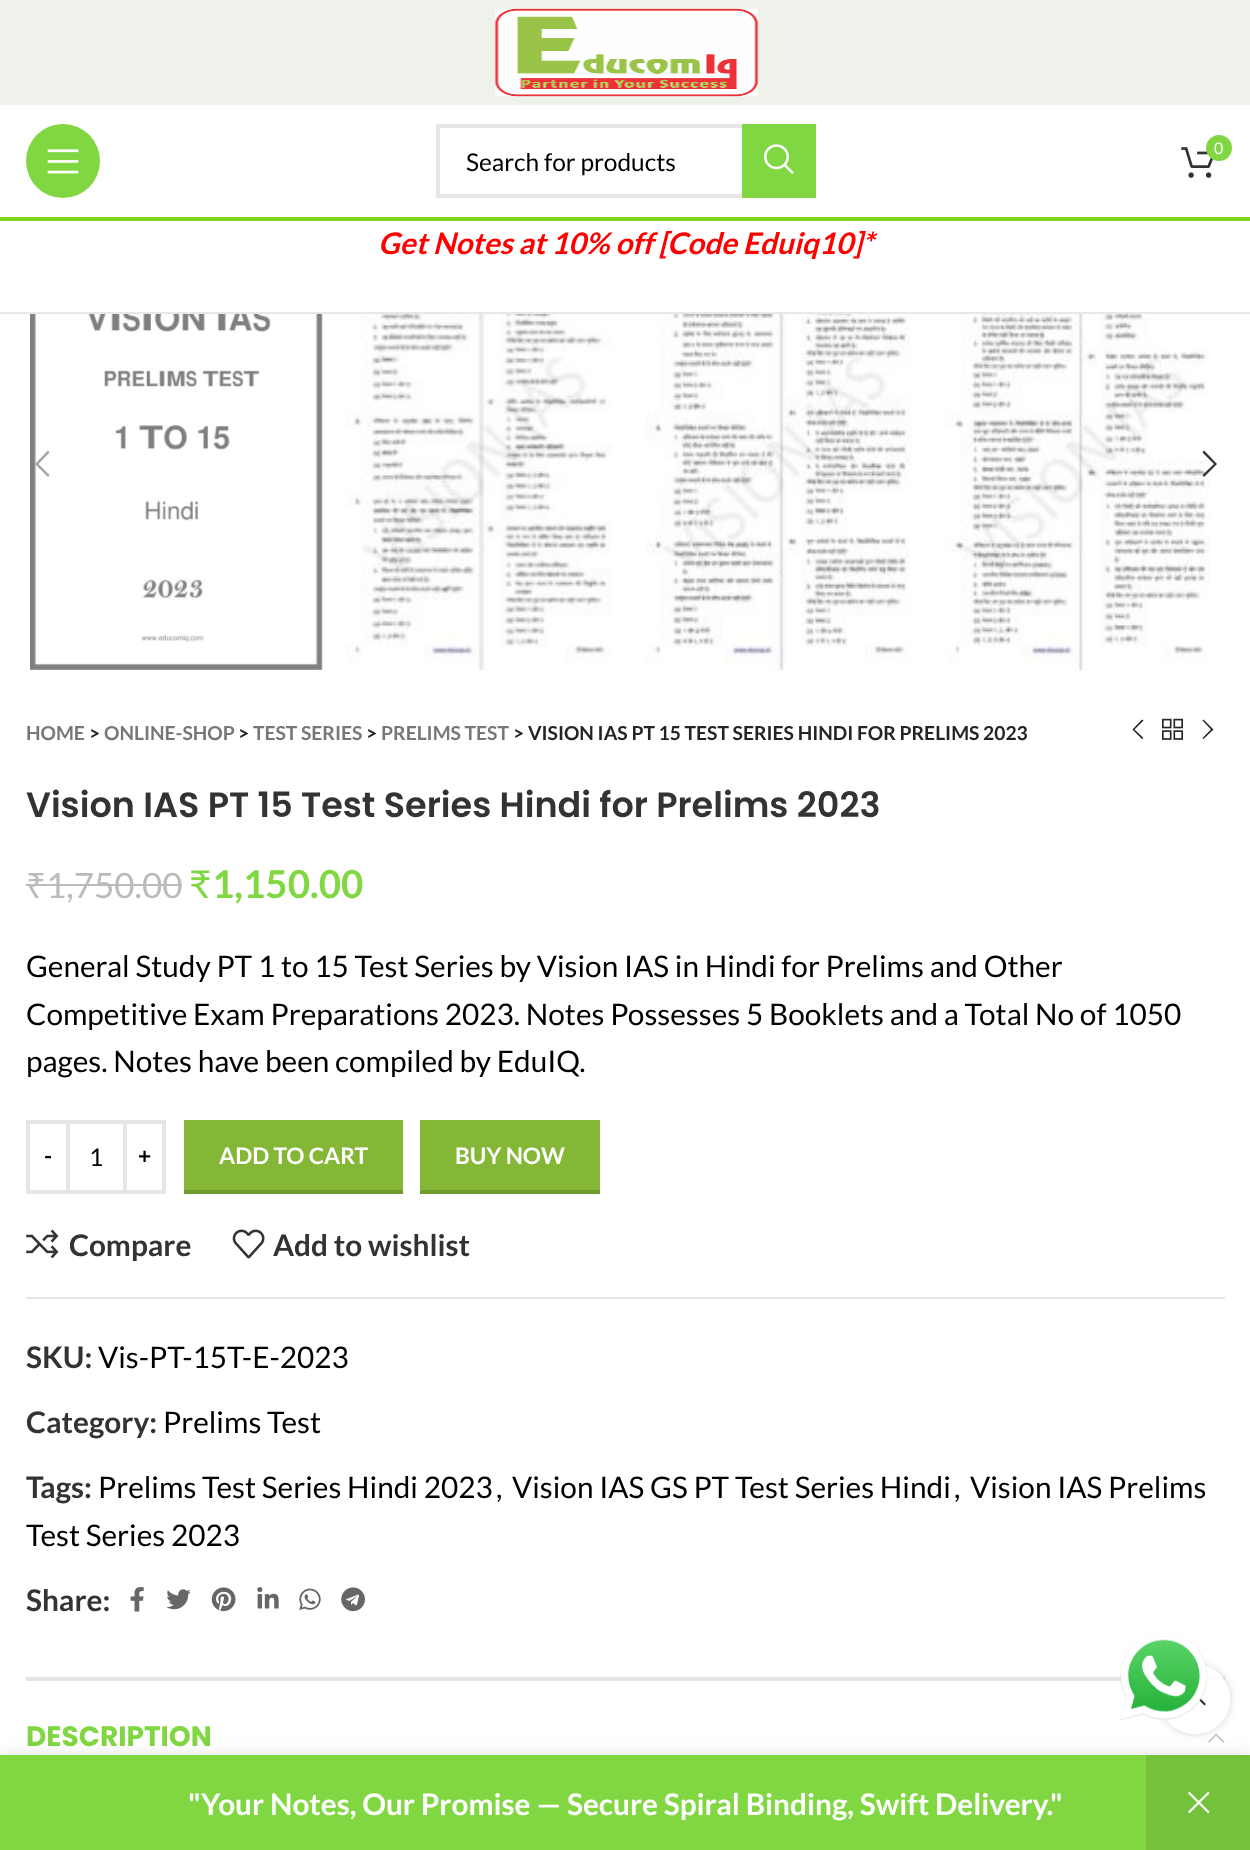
(async () => {
    const canvas = document.querySelector("canvas");
    canvas.width = 1250;
    canvas.height = 1850;
    const context = canvas.getContext("2d");
    context.miterLimit = 4;
    context.fontKerning = "normal";
    function write(s, x, y, font, color) {
        context.font = font;
        context.fillStyle = color;
        context.fillText(s, x, y);
    }
    function block(x, y, w, h, color) {
        context.fillStyle = color;
        context.fillRect(x, y, w, h);
    }
    async function photo(src, x, y, w, h) {
        const img = new Image();
        img.src = src;
        await img.decode();
        context.drawImage(img, x, y, w, h);
    }

    block(0, 0, 1250, 1850, "rgb(255, 255, 255)");
    block(0, 0, 1250, 105, "rgb(239, 242, 234)");
    await photo("media/1.png", 494, 8, 265, 89);
    block(0, 217, 1250, 4, "rgb(126, 211, 33)");
    context.fillStyle = "rgb(129, 215, 66)";
    context.beginPath();
    context.arc(63, 161, 37, 0, Math.PI * 2);
    context.fill();
    await photo("media/2.png", 47, 149, 32, 25);
    await photo("media/3.png", 1181, 147, 32, 31);
    context.beginPath();
    context.arc(1219, 148, 13, 0, Math.PI * 2);
    context.fill();
    write("0", 1214, 154, "16px Lato", "rgb(255, 255, 255)");
    context.strokeStyle = "rgb(230, 230, 230)";
    context.lineWidth = 4;
    context.strokeRect(438, 126, 376, 70);
    write("Search for products", 466, 171, "24.5px Lato", "rgb(0, 0, 0)");
    block(742, 124, 74, 74, "rgb(129, 215, 66)");
    await photo("media/4.png", 764, 144, 30, 30);
    block(0, 312, 1250, 2, "rgb(232, 232, 232)");
    write("Get Notes at 10% off [Code Eduiq10]*", 378, 254, "italic bold 29.75px Lato", "rgb(255, 0, 0)");
    await photo("media/5.png", 30, 314, 293, 356);
    await photo("media/6.png", 345, 314, 267, 356);
    await photo("media/7.png", 646, 314, 265, 356);
    await photo("media/8.png", 945, 314, 265, 356);
    context.fillStyle = "rgb(165, 165, 165)";
    context.beginPath();
    context.moveTo(49.5, 452.5);
    context.lineTo(48, 450.5);
    context.lineTo(35, 464);
    context.lineTo(48, 477);
    context.lineTo(49.5, 475);
    context.lineTo(38.5, 464);
    context.closePath();
    context.fill();
    context.fillStyle = "rgb(51, 51, 51)";
    context.beginPath();
    context.moveTo(1202.5, 452.5);
    context.lineTo(1214, 464);
    context.lineTo(1202.5, 475);
    context.lineTo(1204, 477);
    context.lineTo(1217, 464);
    context.lineTo(1204, 450.5);
    context.closePath();
    context.fill();
    write("HOME", 26, 740, "bold 19.25px Lato", "rgb(119, 119, 119)");
    write(">", 89, 740, "bold 19.25px Lato", "rgb(36, 36, 36)");
    write("ONLINE-SHOP", 104, 740, "bold 19.25px Lato", "rgb(119, 119, 119)");
    write(">", 238, 740, "bold 19.25px Lato", "rgb(36, 36, 36)");
    write("TEST SERIES", 253, 740, "bold 19.25px Lato", "rgb(119, 119, 119)");
    write(">", 366, 740, "bold 19.25px Lato", "rgb(36, 36, 36)");
    write("PRELIMS TEST", 381, 740, "bold 19.25px Lato", "rgb(119, 119, 119)");
    write("> VISION IAS PT 15 TEST SERIES HINDI FOR PRELIMS 2023", 513, 740, "bold 19.25px Lato", "rgb(36, 36, 36)");
    context.beginPath();
    context.moveTo(1143.5, 720.5);
    context.lineTo(1142, 719.5);
    context.lineTo(1132.5, 729.5);
    context.lineTo(1142, 739);
    context.lineTo(1143.5, 738);
    context.lineTo(1134.5, 729.5);
    context.closePath();
    context.fill();
    await photo("media/9.png", 1162, 718, 21, 22);
    context.beginPath();
    context.moveTo(1202.5, 720.5);
    context.lineTo(1211, 729.5);
    context.lineTo(1202.5, 738);
    context.lineTo(1203.5, 739);
    context.lineTo(1213.5, 729.5);
    context.lineTo(1203.5, 719.5);
    context.closePath();
    context.fill();
    write("Vision IAS PT 15 Test Series Hindi for Prelims 2023", 26, 817, "600 35px Poppins", "rgb(51, 51, 51)");
    write("₹", 26, 898, "35px Noto Sans", "rgb(187, 187, 187)");
    block(26, 884, 20, 2, "rgb(187, 187, 187)");
    block(46, 884, 136, 2, "rgb(187, 187, 187)");
    write("1,750.00", 46, 898, "35px Lato", "rgb(187, 187, 187)");
    write("₹", 189, 898, "38.5px 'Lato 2'", "rgb(129, 215, 66)");
    write("1,150.00", 212, 898, "bold 38.5px Lato", "rgb(129, 215, 66)");
    write("General Study PT 1 to 15 Test Series by Vision IAS in Hindi for Prelims and Other", 26, 977, "29.75px Lato", "rgb(0, 0, 0)");
    write("Competitive Exam Preparations 2023. Notes Possesses 5 Booklets and a Total No of 1050", 26, 1025, "29.75px Lato", "rgb(0, 0, 0)");
    write("pages. Notes have been compiled by EduIQ.", 26, 1072, "29.75px Lato", "rgb(0, 0, 0)");
    context.strokeRect(28, 1122, 40, 70);
    write("-", 44, 1164, "bold 22.75px Lato", "rgb(0, 0, 0)");
    block(70, 1120, 53, 4, "rgb(230, 230, 230)");
    block(70, 1190, 53, 4, "rgb(230, 230, 230)");
    write("1", 89, 1166, "24.5px Lato", "rgb(0, 0, 0)");
    context.strokeRect(125, 1122, 39, 70);
    write("+", 138, 1164, "bold 22.75px Lato", "rgb(0, 0, 0)");
    block(184, 1120, 219, 70, "rgb(131, 183, 53)");
    block(184, 1190, 219, 4, "rgb(111, 156, 45)");
    write("ADD TO CART", 219, 1164, "bold 22.75px Lato", "rgb(255, 255, 255)");
    block(420, 1120, 180, 70, "rgb(131, 183, 53)");
    block(420, 1190, 180, 4, "rgb(111, 156, 45)");
    write("BUY NOW", 455, 1164, "bold 22.75px Lato", "rgb(255, 255, 255)");
    await photo("media/10.png", 26, 1229, 33, 30);
    write("Compare", 69, 1256, "bold 29.75px Lato", "rgb(51, 51, 51)");
    await photo("media/11.png", 232, 1229, 33, 30);
    write("Add to wishlist", 273, 1256, "bold 29.75px Lato", "rgb(51, 51, 51)");
    block(26, 1297, 1199, 2, "rgb(228, 228, 228)");
    write("SKU:", 26, 1368, "bold 29.75px Lato", "rgb(51, 51, 51)");
    write("Vis-PT-15T-E-2023", 98, 1368, "29.75px Lato", "rgb(0, 0, 0)");
    write("Category:", 26, 1433, "bold 29.75px Lato", "rgb(51, 51, 51)");
    write("Prelims Test", 163, 1433, "29.75px Lato", "rgb(0, 0, 0)");
    write("Tags:", 26, 1498, "bold 29.75px Lato", "rgb(51, 51, 51)");
    write("Prelims Test Series Hindi 2023", 98, 1498, "29.75px Lato", "rgb(0, 0, 0)");
    write(",", 496, 1498, "29.75px Lato", "rgb(0, 0, 0)");
    write("Vision IAS GS PT Test Series Hindi", 512, 1498, "29.75px Lato", "rgb(0, 0, 0)");
    write(",", 954, 1498, "29.75px Lato", "rgb(0, 0, 0)");
    write("Vision IAS Prelims", 970, 1498, "29.75px Lato", "rgb(0, 0, 0)");
    write("Test Series 2023", 26, 1546, "29.75px Lato", "rgb(0, 0, 0)");
    write("Share:", 26, 1611, "bold 29.75px Lato", "rgb(51, 51, 51)");
    await photo("media/12.png", 130, 1587, 14, 25);
    await photo("media/13.png", 166, 1589, 25, 21);
    await photo("media/14.png", 211, 1587, 25, 25);
    await photo("media/15.png", 257, 1587, 22, 22);
    await photo("media/16.png", 299, 1588, 22, 22);
    await photo("media/17.png", 341, 1587, 24, 25);
    block(26, 1677, 1199, 4, "rgb(228, 228, 228)");
    write("DESCRIPTION", 26, 1746, "bold 28px Poppins", "rgb(129, 215, 66)");
    await photo("media/18.png", 1208, 1733, 17, 10);
    context.save();
    context.beginPath();
    context.moveTo(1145, 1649);
    context.lineTo(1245, 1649);
    context.lineTo(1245, 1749);
    context.lineTo(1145, 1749);
    context.closePath();
    context.moveTo(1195, 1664);
    context.bezierCurveTo(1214.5, 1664, 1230, 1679.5, 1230, 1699);
    context.bezierCurveTo(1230, 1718.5, 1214.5, 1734, 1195, 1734);
    context.bezierCurveTo(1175.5, 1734, 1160, 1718.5, 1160, 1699);
    context.bezierCurveTo(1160, 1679.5, 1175.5, 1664, 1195, 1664);
    context.closePath();
    context.clip("evenodd");
    context.fillStyle = "rgba(0, 0, 0, 0.17)";
    context.filter = "blur(4.5px)";
    context.beginPath();
    context.roundRect(1160, 1664, 70, 70, 35);
    context.fill();
    context.filter = "none";
    context.restore();
    context.fillStyle = "rgba(255, 255, 255, 0.9)";
    context.beginPath();
    context.arc(1195, 1699, 35, 0, Math.PI * 2);
    context.fill();
    context.fillStyle = "rgb(51, 51, 51)";
    context.beginPath();
    context.moveTo(1204.5, 1705.5);
    context.lineTo(1206, 1704);
    context.lineTo(1194.5, 1692.5);
    context.lineTo(1183, 1704);
    context.lineTo(1184.5, 1705.5);
    context.lineTo(1194.5, 1695.5);
    context.closePath();
    context.fill();
    await photo("media/19.png", 1120, 1633, 87, 87);
    context.fillStyle = "rgba(0, 0, 0, 0.12)";
    context.filter = "blur(8px)";
    context.beginPath();
    context.rect(0, 1755, 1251, 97);
    context.fill();
    context.filter = "none";
    block(0, 1755, 1146, 95, "rgb(129, 215, 66)");
    write("\"Your Notes, Our Promise — Secure Spiral Binding, Swift Delivery.\"", 188, 1815, "bold 29.75px Lato", "rgb(255, 255, 255)");
    block(1146, 1755, 104, 95, "rgb(116, 194, 59)");
    await photo("media/20.png", 1188, 1791, 22, 23);
})();
